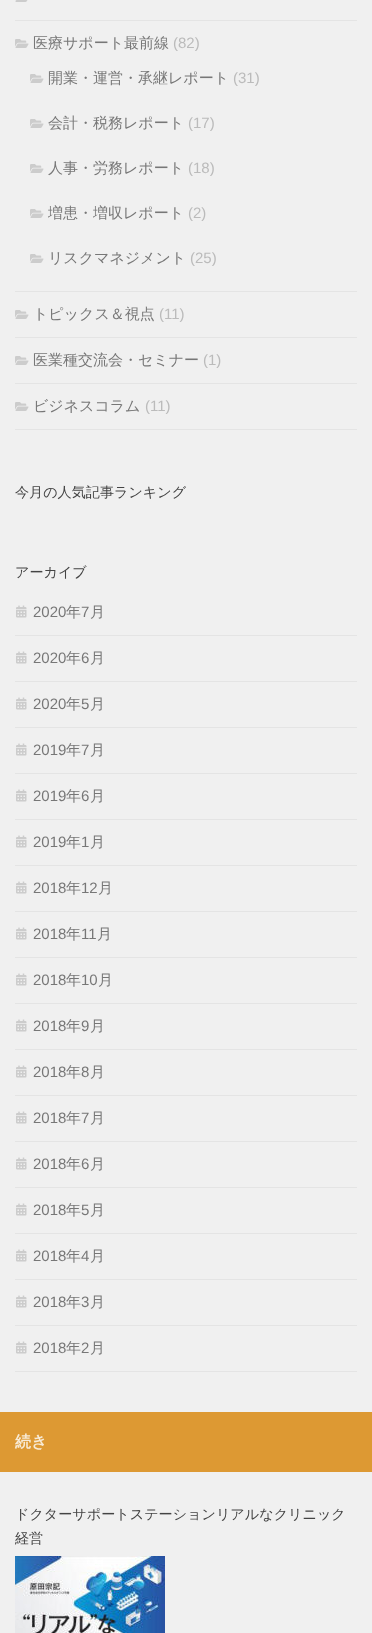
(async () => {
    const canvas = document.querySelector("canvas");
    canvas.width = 372;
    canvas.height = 1633;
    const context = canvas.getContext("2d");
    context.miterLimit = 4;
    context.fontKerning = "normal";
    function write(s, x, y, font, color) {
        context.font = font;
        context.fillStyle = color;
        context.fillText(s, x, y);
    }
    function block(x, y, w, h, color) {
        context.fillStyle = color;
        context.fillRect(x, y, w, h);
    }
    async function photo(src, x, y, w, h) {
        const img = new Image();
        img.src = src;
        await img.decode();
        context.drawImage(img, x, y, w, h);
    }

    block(0, 0, 372, 1633, "rgb(240, 240, 240)");
    block(15, 20, 342, 1, "rgb(228, 228, 228)");
    await photo("media/1.png", 15, 0, 13, 2);
    block(15, 291, 342, 1, "rgb(228, 228, 228)");
    await photo("media/2.png", 15, 39, 14, 9);
    write("医療サポート最前線", 33, 48, "500 15px WenQuanYi Zen Hei", "rgb(119, 119, 119)");
    write("(82)", 173, 48, "15px Liberation Sans", "rgb(187, 187, 187)");
    await photo("media/2.png", 30, 74, 14, 9);
    write("開業・運営・承継レポート", 48, 83, "500 15px WenQuanYi Zen Hei", "rgb(119, 119, 119)");
    write("(31)", 233, 83, "15px Liberation Sans", "rgb(187, 187, 187)");
    await photo("media/2.png", 30, 119, 14, 9);
    write("会計・税務レポート", 48, 128, "500 15px WenQuanYi Zen Hei", "rgb(119, 119, 119)");
    write("(17)", 188, 128, "15px Liberation Sans", "rgb(187, 187, 187)");
    await photo("media/2.png", 30, 164, 14, 9);
    write("人事・労務レポート", 48, 173, "500 15px WenQuanYi Zen Hei", "rgb(119, 119, 119)");
    write("(18)", 188, 173, "15px Liberation Sans", "rgb(187, 187, 187)");
    await photo("media/2.png", 30, 209, 14, 9);
    write("増患・増収レポート", 48, 218, "500 15px WenQuanYi Zen Hei", "rgb(119, 119, 119)");
    write("(2)", 188, 218, "15px Liberation Sans", "rgb(187, 187, 187)");
    await photo("media/2.png", 30, 254, 14, 9);
    write("リスクマネジメント", 48, 263, "500 15px WenQuanYi Zen Hei", "rgb(119, 119, 119)");
    write("(25)", 190, 263, "15px Liberation Sans", "rgb(187, 187, 187)");
    block(15, 337, 342, 1, "rgb(228, 228, 228)");
    await photo("media/2.png", 15, 310, 14, 9);
    write("トピックス＆視点", 33, 319, "500 15px WenQuanYi Zen Hei", "rgb(119, 119, 119)");
    write("(11)", 159, 319, "15px Liberation Sans", "rgb(187, 187, 187)");
    block(15, 383, 342, 1, "rgb(228, 228, 228)");
    await photo("media/2.png", 15, 356, 14, 9);
    write("医業種交流会・セミナー", 33, 365, "500 15px WenQuanYi Zen Hei", "rgb(119, 119, 119)");
    write("(1)", 203, 365, "15px Liberation Sans", "rgb(187, 187, 187)");
    block(15, 429, 342, 1, "rgb(228, 228, 228)");
    await photo("media/2.png", 15, 402, 14, 9);
    write("ビジネスコラム", 33, 411, "500 15px WenQuanYi Zen Hei", "rgb(119, 119, 119)");
    write("(11)", 145, 411, "15px Liberation Sans", "rgb(187, 187, 187)");
    write("今月の人気記事ランキング", 15, 497, "500 14.1px WenQuanYi Zen Hei", "rgb(68, 68, 68)");
    write("アーカイブ", 15, 577, "500 14.1px WenQuanYi Zen Hei", "rgb(68, 68, 68)");
    block(15, 635, 342, 1, "rgb(228, 228, 228)");
    await photo("media/3.png", 16, 605, 11, 13);
    write("2020", 33, 617, "15px Liberation Sans", "rgb(119, 119, 119)");
    write("年", 66, 617, "500 15px WenQuanYi Zen Hei", "rgb(119, 119, 119)");
    write("7", 81, 617, "15px Liberation Sans", "rgb(119, 119, 119)");
    write("月", 90, 617, "500 15px WenQuanYi Zen Hei", "rgb(119, 119, 119)");
    block(15, 681, 342, 1, "rgb(228, 228, 228)");
    await photo("media/3.png", 16, 651, 11, 13);
    write("2020", 33, 663, "15px Liberation Sans", "rgb(119, 119, 119)");
    write("年", 66, 663, "500 15px WenQuanYi Zen Hei", "rgb(119, 119, 119)");
    write("6", 81, 663, "15px Liberation Sans", "rgb(119, 119, 119)");
    write("月", 90, 663, "500 15px WenQuanYi Zen Hei", "rgb(119, 119, 119)");
    block(15, 727, 342, 1, "rgb(228, 228, 228)");
    await photo("media/3.png", 16, 697, 11, 13);
    write("2020", 33, 709, "15px Liberation Sans", "rgb(119, 119, 119)");
    write("年", 66, 709, "500 15px WenQuanYi Zen Hei", "rgb(119, 119, 119)");
    write("5", 81, 709, "15px Liberation Sans", "rgb(119, 119, 119)");
    write("月", 90, 709, "500 15px WenQuanYi Zen Hei", "rgb(119, 119, 119)");
    block(15, 773, 342, 1, "rgb(228, 228, 228)");
    await photo("media/3.png", 16, 743, 11, 13);
    write("2019", 33, 755, "15px Liberation Sans", "rgb(119, 119, 119)");
    write("年", 66, 755, "500 15px WenQuanYi Zen Hei", "rgb(119, 119, 119)");
    write("7", 81, 755, "15px Liberation Sans", "rgb(119, 119, 119)");
    write("月", 90, 755, "500 15px WenQuanYi Zen Hei", "rgb(119, 119, 119)");
    block(15, 819, 342, 1, "rgb(228, 228, 228)");
    await photo("media/3.png", 16, 789, 11, 13);
    write("2019", 33, 801, "15px Liberation Sans", "rgb(119, 119, 119)");
    write("年", 66, 801, "500 15px WenQuanYi Zen Hei", "rgb(119, 119, 119)");
    write("6", 81, 801, "15px Liberation Sans", "rgb(119, 119, 119)");
    write("月", 90, 801, "500 15px WenQuanYi Zen Hei", "rgb(119, 119, 119)");
    block(15, 865, 342, 1, "rgb(228, 228, 228)");
    await photo("media/3.png", 16, 835, 11, 13);
    write("2019", 33, 847, "15px Liberation Sans", "rgb(119, 119, 119)");
    write("年", 66, 847, "500 15px WenQuanYi Zen Hei", "rgb(119, 119, 119)");
    write("1", 81, 847, "15px Liberation Sans", "rgb(119, 119, 119)");
    write("月", 90, 847, "500 15px WenQuanYi Zen Hei", "rgb(119, 119, 119)");
    block(15, 911, 342, 1, "rgb(228, 228, 228)");
    await photo("media/3.png", 16, 881, 11, 13);
    write("2018", 33, 893, "15px Liberation Sans", "rgb(119, 119, 119)");
    write("年", 66, 893, "500 15px WenQuanYi Zen Hei", "rgb(119, 119, 119)");
    write("12", 81, 893, "15px Liberation Sans", "rgb(119, 119, 119)");
    write("月", 98, 893, "500 15px WenQuanYi Zen Hei", "rgb(119, 119, 119)");
    block(15, 957, 342, 1, "rgb(228, 228, 228)");
    await photo("media/3.png", 16, 927, 11, 13);
    write("2018", 33, 939, "15px Liberation Sans", "rgb(119, 119, 119)");
    write("年", 66, 939, "500 15px WenQuanYi Zen Hei", "rgb(119, 119, 119)");
    write("11", 81, 939, "15px Liberation Sans", "rgb(119, 119, 119)");
    write("月", 97, 939, "500 15px WenQuanYi Zen Hei", "rgb(119, 119, 119)");
    block(15, 1003, 342, 1, "rgb(228, 228, 228)");
    await photo("media/3.png", 16, 973, 11, 13);
    write("2018", 33, 985, "15px Liberation Sans", "rgb(119, 119, 119)");
    write("年", 66, 985, "500 15px WenQuanYi Zen Hei", "rgb(119, 119, 119)");
    write("10", 81, 985, "15px Liberation Sans", "rgb(119, 119, 119)");
    write("月", 98, 985, "500 15px WenQuanYi Zen Hei", "rgb(119, 119, 119)");
    block(15, 1049, 342, 1, "rgb(228, 228, 228)");
    await photo("media/3.png", 16, 1019, 11, 13);
    write("2018", 33, 1031, "15px Liberation Sans", "rgb(119, 119, 119)");
    write("年", 66, 1031, "500 15px WenQuanYi Zen Hei", "rgb(119, 119, 119)");
    write("9", 81, 1031, "15px Liberation Sans", "rgb(119, 119, 119)");
    write("月", 90, 1031, "500 15px WenQuanYi Zen Hei", "rgb(119, 119, 119)");
    block(15, 1095, 342, 1, "rgb(228, 228, 228)");
    await photo("media/3.png", 16, 1065, 11, 13);
    write("2018", 33, 1077, "15px Liberation Sans", "rgb(119, 119, 119)");
    write("年", 66, 1077, "500 15px WenQuanYi Zen Hei", "rgb(119, 119, 119)");
    write("8", 81, 1077, "15px Liberation Sans", "rgb(119, 119, 119)");
    write("月", 90, 1077, "500 15px WenQuanYi Zen Hei", "rgb(119, 119, 119)");
    block(15, 1141, 342, 1, "rgb(228, 228, 228)");
    await photo("media/3.png", 16, 1111, 11, 13);
    write("2018", 33, 1123, "15px Liberation Sans", "rgb(119, 119, 119)");
    write("年", 66, 1123, "500 15px WenQuanYi Zen Hei", "rgb(119, 119, 119)");
    write("7", 81, 1123, "15px Liberation Sans", "rgb(119, 119, 119)");
    write("月", 90, 1123, "500 15px WenQuanYi Zen Hei", "rgb(119, 119, 119)");
    block(15, 1187, 342, 1, "rgb(228, 228, 228)");
    await photo("media/3.png", 16, 1157, 11, 13);
    write("2018", 33, 1169, "15px Liberation Sans", "rgb(119, 119, 119)");
    write("年", 66, 1169, "500 15px WenQuanYi Zen Hei", "rgb(119, 119, 119)");
    write("6", 81, 1169, "15px Liberation Sans", "rgb(119, 119, 119)");
    write("月", 90, 1169, "500 15px WenQuanYi Zen Hei", "rgb(119, 119, 119)");
    block(15, 1233, 342, 1, "rgb(228, 228, 228)");
    await photo("media/3.png", 16, 1203, 11, 13);
    write("2018", 33, 1215, "15px Liberation Sans", "rgb(119, 119, 119)");
    write("年", 66, 1215, "500 15px WenQuanYi Zen Hei", "rgb(119, 119, 119)");
    write("5", 81, 1215, "15px Liberation Sans", "rgb(119, 119, 119)");
    write("月", 90, 1215, "500 15px WenQuanYi Zen Hei", "rgb(119, 119, 119)");
    block(15, 1279, 342, 1, "rgb(228, 228, 228)");
    await photo("media/3.png", 16, 1249, 11, 13);
    write("2018", 33, 1261, "15px Liberation Sans", "rgb(119, 119, 119)");
    write("年", 66, 1261, "500 15px WenQuanYi Zen Hei", "rgb(119, 119, 119)");
    write("4", 81, 1261, "15px Liberation Sans", "rgb(119, 119, 119)");
    write("月", 90, 1261, "500 15px WenQuanYi Zen Hei", "rgb(119, 119, 119)");
    block(15, 1325, 342, 1, "rgb(228, 228, 228)");
    await photo("media/3.png", 16, 1295, 11, 13);
    write("2018", 33, 1307, "15px Liberation Sans", "rgb(119, 119, 119)");
    write("年", 66, 1307, "500 15px WenQuanYi Zen Hei", "rgb(119, 119, 119)");
    write("3", 81, 1307, "15px Liberation Sans", "rgb(119, 119, 119)");
    write("月", 90, 1307, "500 15px WenQuanYi Zen Hei", "rgb(119, 119, 119)");
    block(15, 1371, 342, 1, "rgb(228, 228, 228)");
    await photo("media/3.png", 16, 1341, 11, 13);
    write("2018", 33, 1353, "15px Liberation Sans", "rgb(119, 119, 119)");
    write("年", 66, 1353, "500 15px WenQuanYi Zen Hei", "rgb(119, 119, 119)");
    write("2", 81, 1353, "15px Liberation Sans", "rgb(119, 119, 119)");
    write("月", 90, 1353, "500 15px WenQuanYi Zen Hei", "rgb(119, 119, 119)");
    block(0, 1412, 372, 60, "rgb(221, 153, 51)");
    write("続き", 15, 1447, "bold 16px WenQuanYi Zen Hei", "rgb(248, 235, 214)");
    write("ドクターサポートステーションリアルなクリニック", 15, 1519, "500 14.1px WenQuanYi Zen Hei", "rgb(68, 68, 68)");
    write("経営", 15, 1543, "500 14.1px WenQuanYi Zen Hei", "rgb(68, 68, 68)");
    await photo("media/4.png", 15, 1556, 150, 77);
})();
